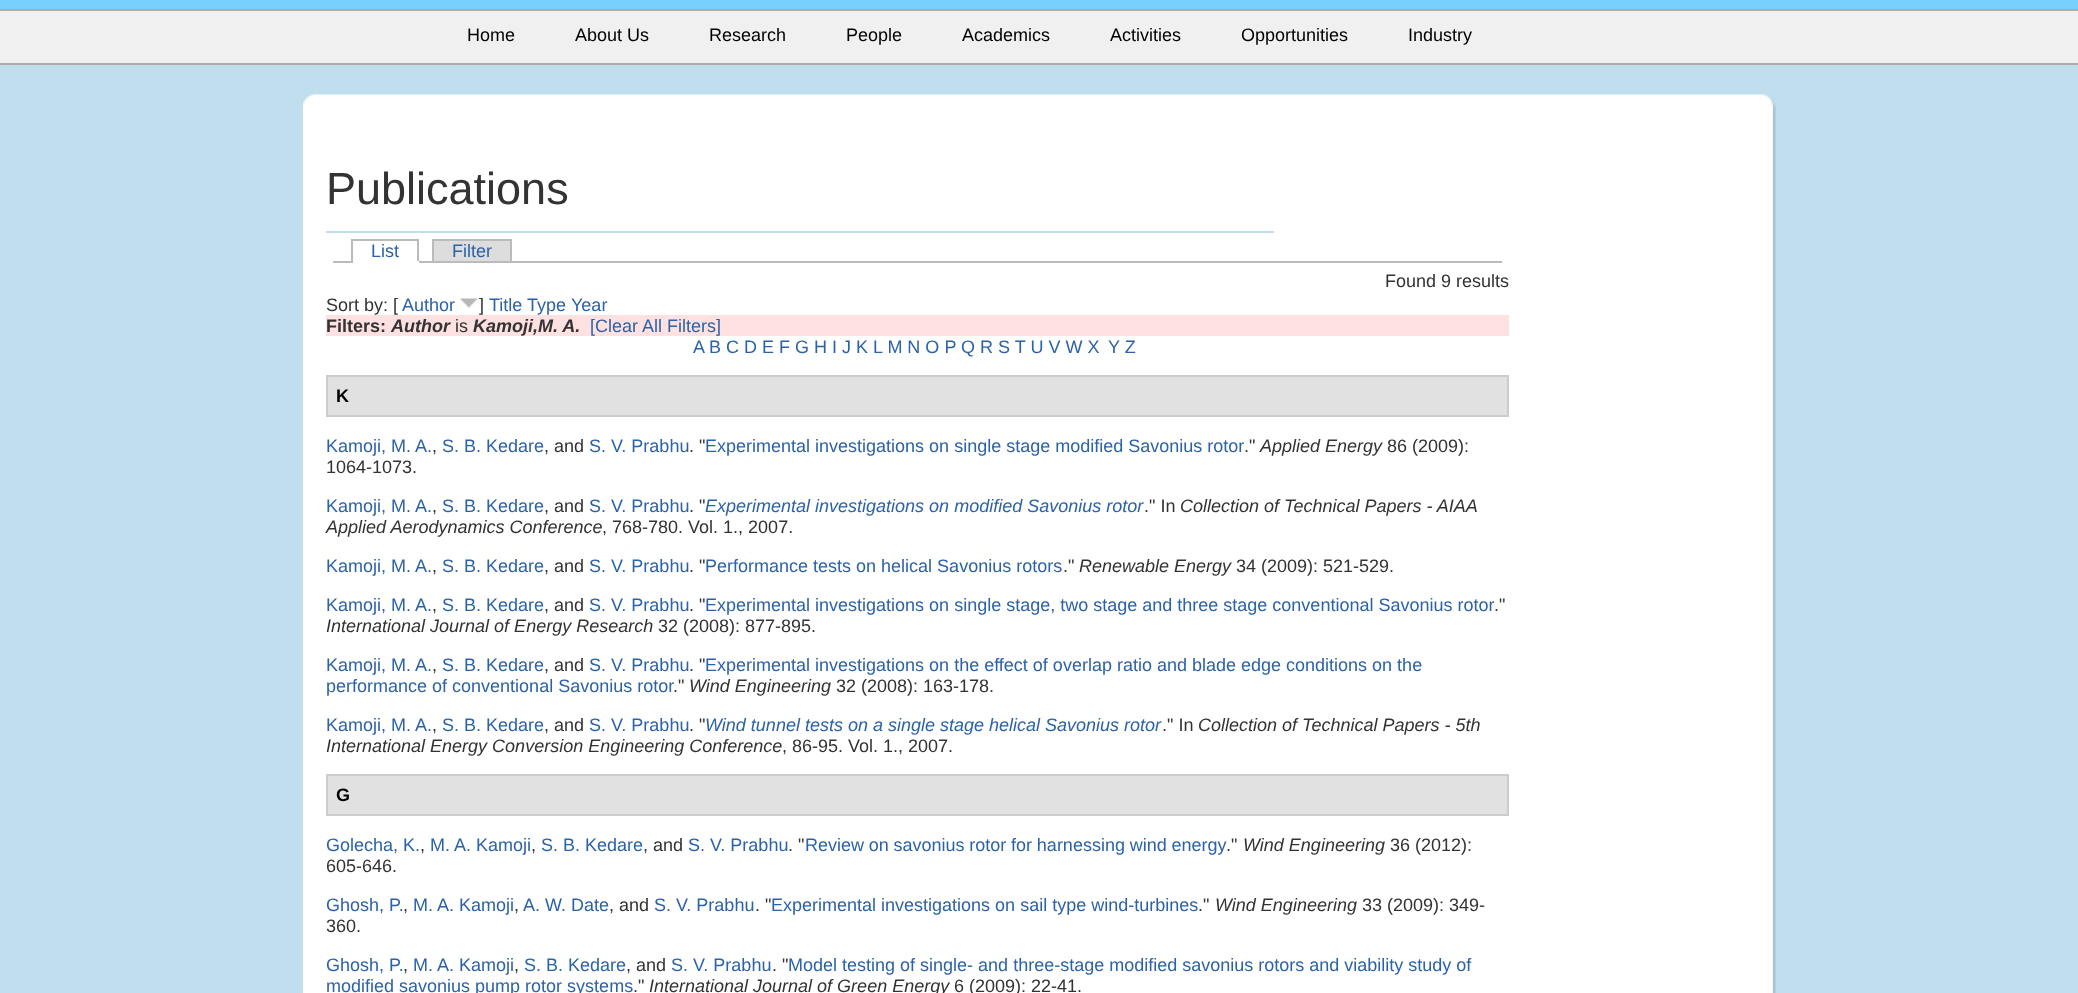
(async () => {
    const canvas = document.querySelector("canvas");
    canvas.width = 2078;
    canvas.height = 993;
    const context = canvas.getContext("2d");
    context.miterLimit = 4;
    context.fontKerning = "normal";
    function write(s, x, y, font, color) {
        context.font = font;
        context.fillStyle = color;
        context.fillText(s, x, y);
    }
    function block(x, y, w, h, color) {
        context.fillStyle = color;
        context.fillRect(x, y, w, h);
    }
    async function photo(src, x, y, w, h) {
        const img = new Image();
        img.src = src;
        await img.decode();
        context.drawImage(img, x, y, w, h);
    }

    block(0, 0, 2078, 993, "rgb(119, 207, 255)");
    block(0, 11, 2078, 52, "rgb(240, 240, 240)");
    block(0, 9, 2078, 2, "rgb(171, 171, 171)");
    block(0, 63, 2078, 2, "rgb(171, 171, 171)");
    write("Home", 467, 41, "18px Liberation Sans", "rgb(0, 0, 0)");
    write("About Us", 575, 41, "18px Liberation Sans", "rgb(0, 0, 0)");
    write("Research", 709, 41, "18px Liberation Sans", "rgb(0, 0, 0)");
    write("People", 846, 41, "18px Liberation Sans", "rgb(0, 0, 0)");
    write("Academics", 962, 41, "18px Liberation Sans", "rgb(0, 0, 0)");
    write("Activities", 1110, 41, "18px Liberation Sans", "rgb(0, 0, 0)");
    write("Opportunities", 1241, 41, "18px Liberation Sans", "rgb(0, 0, 0)");
    write("Industry", 1408, 41, "18px Liberation Sans", "rgb(0, 0, 0)");
    block(0, 65, 2078, 928, "rgb(192, 222, 237)");
    await photo("media/1.png", 303, 94, 1473, 17);
    await photo("media/2.png", 303, 111, 1473, 882);
    block(326, 231, 948, 2, "rgb(192, 222, 237)");
    write("Publications", 326, 204, "45px Liberation Sans", "rgb(51, 51, 51)");
    block(333, 261, 1169, 2, "rgb(187, 187, 187)");
    write("List", 371, 257, "18px Liberation Sans", "rgb(44, 99, 167)");
    block(351, 239, 68, 2, "rgb(187, 187, 187)");
    block(417, 239, 2, 24, "rgb(187, 187, 187)");
    block(351, 261, 68, 2, "rgb(255, 255, 255)");
    block(351, 239, 2, 24, "rgb(187, 187, 187)");
    block(434, 241, 76, 20, "rgb(221, 221, 221)");
    write("Filter", 452, 257, "18px Liberation Sans", "rgb(44, 99, 167)");
    block(432, 239, 80, 2, "rgb(187, 187, 187)");
    block(510, 239, 2, 22, "rgb(187, 187, 187)");
    block(432, 239, 2, 22, "rgb(187, 187, 187)");
    write("Found 9 results", 1385, 287, "18px Liberation Sans", "rgb(51, 51, 51)");
    write("Sort by: [", 326, 311, "18px Liberation Sans", "rgb(51, 51, 51)");
    write("Author", 402, 311, "18px Liberation Sans", "rgb(44, 99, 167)");
    await photo("media/3.png", 460, 298, 18, 10);
    write("]", 479, 311, "18px Liberation Sans", "rgb(51, 51, 51)");
    write("Title Type", 489, 311, "18px Liberation Sans", "rgb(44, 99, 167)");
    write("Year", 571, 311, "18px Liberation Sans", "rgb(44, 99, 167)");
    block(326, 315, 1183, 21, "rgb(255, 225, 225)");
    write("Filters:", 326, 332, "bold 18px Liberation Sans", "rgb(51, 51, 51)");
    write("Author", 391, 332, "italic bold 18px Liberation Sans", "rgb(51, 51, 51)");
    write("is", 455, 332, "18px Liberation Sans", "rgb(51, 51, 51)");
    write("Kamoji,M. A.", 473, 332, "italic bold 18px Liberation Sans", "rgb(51, 51, 51)");
    write("[Clear All Filters]", 590, 332, "18px Liberation Sans", "rgb(44, 99, 167)");
    write("A B C D E F G H I J K L M N O P Q R S T U V W X", 693, 353, "18px Liberation Sans", "rgb(44, 99, 167)");
    write("Y Z", 1108, 353, "18px Liberation Sans", "rgb(44, 99, 167)");
    context.fillStyle = "rgb(225, 225, 225)";
    context.beginPath();
    context.rect(327, 376, 1181, 40);
    context.fill();
    context.strokeStyle = "rgb(204, 204, 204)";
    context.lineWidth = 2;
    context.stroke();
    write("K", 336, 402, "bold 18px Liberation Sans", "rgb(0, 0, 0)");
    write("Kamoji, M. A.", 326, 452, "18px Liberation Sans", "rgb(44, 99, 167)");
    write("S. B. Kedare", 442, 452, "18px Liberation Sans", "rgb(44, 99, 167)");
    write(", and", 544, 452, "18px Liberation Sans", "rgb(51, 51, 51)");
    write("S. V. Prabhu", 589, 452, "18px Liberation Sans", "rgb(44, 99, 167)");
    write(". \"", 689, 452, "18px Liberation Sans", "rgb(51, 51, 51)");
    write("Experimental investigations on single stage modified Savonius rotor", 705, 452, "18px Liberation Sans", "rgb(44, 99, 167)");
    write(".\"", 1244, 452, "18px Liberation Sans", "rgb(51, 51, 51)");
    write("Applied Energy", 1260, 452, "italic 18px Liberation Sans", "rgb(51, 51, 51)");
    write("86 (2009):", 1387, 452, "18px Liberation Sans", "rgb(51, 51, 51)");
    write(",", 432, 452, "18px Liberation Sans", "rgb(51, 51, 51)");
    write("1064-1073.", 326, 473, "18px Liberation Sans", "rgb(51, 51, 51)");
    write("Kamoji, M. A.", 326, 512, "18px Liberation Sans", "rgb(44, 99, 167)");
    write("S. B. Kedare", 442, 512, "18px Liberation Sans", "rgb(44, 99, 167)");
    write(", and", 544, 512, "18px Liberation Sans", "rgb(51, 51, 51)");
    write("S. V. Prabhu", 589, 512, "18px Liberation Sans", "rgb(44, 99, 167)");
    write(". \"", 689, 512, "18px Liberation Sans", "rgb(51, 51, 51)");
    write("Experimental investigations on modified Savonius rotor", 705, 512, "italic 18px Liberation Sans", "rgb(44, 99, 167)");
    write(".\" In", 1144, 512, "18px Liberation Sans", "rgb(51, 51, 51)");
    write("Collection of Technical Papers - AIAA", 1180, 512, "italic 18px Liberation Sans", "rgb(51, 51, 51)");
    write(",", 432, 512, "18px Liberation Sans", "rgb(51, 51, 51)");
    write("Applied Aerodynamics Conference", 326, 533, "italic 18px Liberation Sans", "rgb(51, 51, 51)");
    write(", 768-780. Vol. 1., 2007.", 602, 533, "18px Liberation Sans", "rgb(51, 51, 51)");
    write("Kamoji, M. A.", 326, 572, "18px Liberation Sans", "rgb(44, 99, 167)");
    write("S. B. Kedare", 442, 572, "18px Liberation Sans", "rgb(44, 99, 167)");
    write(", and", 544, 572, "18px Liberation Sans", "rgb(51, 51, 51)");
    write("S. V. Prabhu", 589, 572, "18px Liberation Sans", "rgb(44, 99, 167)");
    write(". \"", 689, 572, "18px Liberation Sans", "rgb(51, 51, 51)");
    write("Performance tests on helical Savonius rotors", 705, 572, "18px Liberation Sans", "rgb(44, 99, 167)");
    write(".\"", 1063, 572, "18px Liberation Sans", "rgb(51, 51, 51)");
    write("Renewable Energy", 1079, 572, "italic 18px Liberation Sans", "rgb(51, 51, 51)");
    write("34 (2009): 521-529.", 1236, 572, "18px Liberation Sans", "rgb(51, 51, 51)");
    write(",", 432, 572, "18px Liberation Sans", "rgb(51, 51, 51)");
    write("Kamoji, M. A.", 326, 611, "18px Liberation Sans", "rgb(44, 99, 167)");
    write("S. B. Kedare", 442, 611, "18px Liberation Sans", "rgb(44, 99, 167)");
    write(", and", 544, 611, "18px Liberation Sans", "rgb(51, 51, 51)");
    write("S. V. Prabhu", 589, 611, "18px Liberation Sans", "rgb(44, 99, 167)");
    write(". \"", 689, 611, "18px Liberation Sans", "rgb(51, 51, 51)");
    write("Experimental investigations on single stage, two stage and three stage conventional Savonius rotor", 705, 611, "18px Liberation Sans", "rgb(44, 99, 167)");
    write(".\"", 1494, 611, "18px Liberation Sans", "rgb(51, 51, 51)");
    write(",", 432, 611, "18px Liberation Sans", "rgb(51, 51, 51)");
    write("International Journal of Energy Research", 326, 632, "italic 18px Liberation Sans", "rgb(51, 51, 51)");
    write("32 (2008): 877-895.", 658, 632, "18px Liberation Sans", "rgb(51, 51, 51)");
    write("Kamoji, M. A.", 326, 671, "18px Liberation Sans", "rgb(44, 99, 167)");
    write("S. B. Kedare", 442, 671, "18px Liberation Sans", "rgb(44, 99, 167)");
    write(", and", 544, 671, "18px Liberation Sans", "rgb(51, 51, 51)");
    write("S. V. Prabhu", 589, 671, "18px Liberation Sans", "rgb(44, 99, 167)");
    write(". \"", 689, 671, "18px Liberation Sans", "rgb(51, 51, 51)");
    write("Experimental investigations on the effect of overlap ratio and blade edge conditions on the", 705, 671, "18px Liberation Sans", "rgb(44, 99, 167)");
    write(",", 432, 671, "18px Liberation Sans", "rgb(51, 51, 51)");
    write("performance of conventional Savonius rotor", 326, 692, "18px Liberation Sans", "rgb(44, 99, 167)");
    write(".\"", 673, 692, "18px Liberation Sans", "rgb(51, 51, 51)");
    write("Wind Engineering", 689, 692, "italic 18px Liberation Sans", "rgb(51, 51, 51)");
    write("32 (2008): 163-178.", 836, 692, "18px Liberation Sans", "rgb(51, 51, 51)");
    write("Kamoji, M. A.", 326, 731, "18px Liberation Sans", "rgb(44, 99, 167)");
    write("S. B. Kedare", 442, 731, "18px Liberation Sans", "rgb(44, 99, 167)");
    write(", and", 544, 731, "18px Liberation Sans", "rgb(51, 51, 51)");
    write("S. V. Prabhu", 589, 731, "18px Liberation Sans", "rgb(44, 99, 167)");
    write(". \"", 689, 731, "18px Liberation Sans", "rgb(51, 51, 51)");
    write("Wind tunnel tests on a single stage helical Savonius rotor", 705, 731, "italic 18px Liberation Sans", "rgb(44, 99, 167)");
    write(".\" In", 1162, 731, "18px Liberation Sans", "rgb(51, 51, 51)");
    write("Collection of Technical Papers - 5th", 1198, 731, "italic 18px Liberation Sans", "rgb(51, 51, 51)");
    write(",", 432, 731, "18px Liberation Sans", "rgb(51, 51, 51)");
    write("International Energy Conversion Engineering Conference", 326, 752, "italic 18px Liberation Sans", "rgb(51, 51, 51)");
    write(", 86-95. Vol. 1., 2007.", 782, 752, "18px Liberation Sans", "rgb(51, 51, 51)");
    context.fillStyle = "rgb(225, 225, 225)";
    context.beginPath();
    context.rect(327, 775, 1181, 40);
    context.fill();
    context.stroke();
    write("G", 336, 801, "bold 18px Liberation Sans", "rgb(0, 0, 0)");
    write("Golecha, K.", 326, 851, "18px Liberation Sans", "rgb(44, 99, 167)");
    write("M. A. Kamoji", 430, 851, "18px Liberation Sans", "rgb(44, 99, 167)");
    write("S. B. Kedare", 541, 851, "18px Liberation Sans", "rgb(44, 99, 167)");
    write(", and", 643, 851, "18px Liberation Sans", "rgb(51, 51, 51)");
    write("S. V. Prabhu", 688, 851, "18px Liberation Sans", "rgb(44, 99, 167)");
    write(". \"", 788, 851, "18px Liberation Sans", "rgb(51, 51, 51)");
    context.wordSpacing = "-0.25px";
    write("Review on savonius rotor for harnessing wind energy", 805, 851, "18px Liberation Sans", "rgb(44, 99, 167)");
    context.wordSpacing = "0px";
    write(".\"", 1226, 851, "18px Liberation Sans", "rgb(51, 51, 51)");
    write("Wind Engineering", 1243, 851, "italic 18px Liberation Sans", "rgb(51, 51, 51)");
    write("36 (2012):", 1390, 851, "18px Liberation Sans", "rgb(51, 51, 51)");
    write(",", 420, 851, "18px Liberation Sans", "rgb(51, 51, 51)");
    write(",", 531, 851, "18px Liberation Sans", "rgb(51, 51, 51)");
    write("605-646.", 326, 872, "18px Liberation Sans", "rgb(51, 51, 51)");
    write("Ghosh, P.", 326, 911, "18px Liberation Sans", "rgb(44, 99, 167)");
    write("M. A. Kamoji", 413, 911, "18px Liberation Sans", "rgb(44, 99, 167)");
    write("A. W. Date", 523, 911, "18px Liberation Sans", "rgb(44, 99, 167)");
    write(", and", 609, 911, "18px Liberation Sans", "rgb(51, 51, 51)");
    write("S. V. Prabhu", 654, 911, "18px Liberation Sans", "rgb(44, 99, 167)");
    write(". \"", 755, 911, "18px Liberation Sans", "rgb(51, 51, 51)");
    write("Experimental investigations on sail type wind-turbines", 771, 911, "18px Liberation Sans", "rgb(44, 99, 167)");
    write(".\"", 1198, 911, "18px Liberation Sans", "rgb(51, 51, 51)");
    write("Wind Engineering", 1215, 911, "italic 18px Liberation Sans", "rgb(51, 51, 51)");
    write("33 (2009): 349-", 1362, 911, "18px Liberation Sans", "rgb(51, 51, 51)");
    write(",", 403, 911, "18px Liberation Sans", "rgb(51, 51, 51)");
    write(",", 514, 911, "18px Liberation Sans", "rgb(51, 51, 51)");
    write("360.", 326, 932, "18px Liberation Sans", "rgb(51, 51, 51)");
    write("Ghosh, P.", 326, 971, "18px Liberation Sans", "rgb(44, 99, 167)");
    write("M. A. Kamoji", 413, 971, "18px Liberation Sans", "rgb(44, 99, 167)");
    write("S. B. Kedare", 524, 971, "18px Liberation Sans", "rgb(44, 99, 167)");
    write(", and", 626, 971, "18px Liberation Sans", "rgb(51, 51, 51)");
    write("S. V. Prabhu", 671, 971, "18px Liberation Sans", "rgb(44, 99, 167)");
    write(". \"", 772, 971, "18px Liberation Sans", "rgb(51, 51, 51)");
    write("Model testing of single- and three-stage modified savonius rotors and viability study of", 788, 971, "18px Liberation Sans", "rgb(44, 99, 167)");
    write(",", 403, 971, "18px Liberation Sans", "rgb(51, 51, 51)");
    write(",", 514, 971, "18px Liberation Sans", "rgb(51, 51, 51)");
    write("modified savonius pump rotor systems", 326, 992, "18px Liberation Sans", "rgb(44, 99, 167)");
    write(".\"", 633, 992, "18px Liberation Sans", "rgb(51, 51, 51)");
    write("International Journal of Green Energy", 649, 992, "italic 18px Liberation Sans", "rgb(51, 51, 51)");
    write("6 (2009): 22-41.", 954, 992, "18px Liberation Sans", "rgb(51, 51, 51)");
})();
